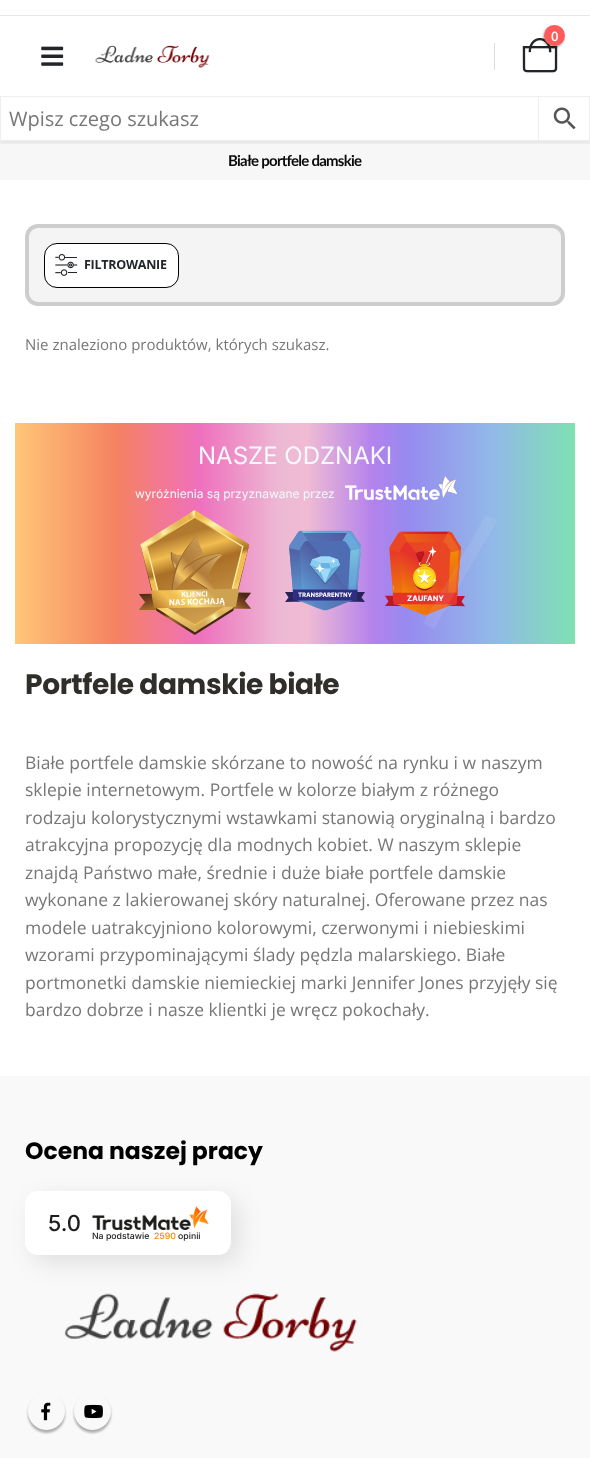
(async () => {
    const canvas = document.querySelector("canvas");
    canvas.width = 590;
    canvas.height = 1458;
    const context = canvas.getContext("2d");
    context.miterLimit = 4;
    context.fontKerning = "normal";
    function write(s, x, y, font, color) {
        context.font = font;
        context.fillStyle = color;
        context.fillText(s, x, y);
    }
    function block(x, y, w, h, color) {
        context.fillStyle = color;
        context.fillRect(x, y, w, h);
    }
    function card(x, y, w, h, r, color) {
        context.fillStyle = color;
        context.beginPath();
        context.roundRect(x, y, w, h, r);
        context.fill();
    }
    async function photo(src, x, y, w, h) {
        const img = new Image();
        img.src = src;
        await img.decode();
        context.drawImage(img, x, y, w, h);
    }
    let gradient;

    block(0, 0, 590, 1458, "rgb(255, 255, 255)");
    block(0, 141, 590, 39, "rgb(247, 247, 247)");
    context.save();
    context.beginPath();
    context.rect(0, 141, 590, 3);
    context.clip();
    context.fillStyle = "rgba(0, 0, 0, 0.06)";
    context.filter = "blur(1px)";
    context.beginPath();
    context.rect(0, 3, 590, 141);
    context.fill();
    context.filter = "none";
    context.restore();
    block(0, 15, 590, 1, "rgb(231, 231, 231)");
    await photo("media/1.png", 522, 38, 36, 35);
    context.fillStyle = "rgba(0, 0, 0, 0.3)";
    context.filter = "blur(1px)";
    context.beginPath();
    context.roundRect(543, 26, 21, 22, 10.5);
    context.fill();
    context.filter = "none";
    context.fillStyle = "rgb(255, 91, 91)";
    context.beginPath();
    context.arc(554.5, 35.5, 10.5, 0, Math.PI * 2);
    context.fill();
    write("0", 551, 41, "600 13px Open Sans", "rgb(255, 255, 255)");
    await photo("media/2.png", 41, 46, 23, 20);
    await photo("media/3.png", 95, 45, 115, 23);
    block(494, 43, 1, 27, "rgb(218, 220, 221)");
    context.strokeStyle = "rgb(238, 238, 238)";
    context.strokeRect(538.5, 96.5, 51, 44);
    context.strokeRect(0.5, 96.5, 538, 44);
    write("Wpisz czego szukasz", 9, 126, "20px Open Sans", "rgb(119, 119, 119)");
    await photo("media/4.png", 553, 107, 23, 23);
    context.letterSpacing = "-0.75px";
    write("Białe portfele damskie", 228, 166, "bold 15px Lato", "rgb(10, 10, 10)");
    context.fillStyle = "rgb(244, 244, 244)";
    context.beginPath();
    context.roundRect(27, 226, 536, 78, 11);
    context.fill();
    context.strokeStyle = "rgb(205, 205, 205)";
    context.lineWidth = 4;
    context.stroke();
    context.fillStyle = "rgb(255, 255, 255)";
    context.beginPath();
    context.roundRect(44.5, 243.5, 134, 44, 12.5);
    context.fill();
    context.strokeStyle = "rgb(0, 0, 0)";
    context.lineWidth = 1;
    context.stroke();
    await photo("media/5.png", 55, 254, 23, 22);
    context.letterSpacing = "-0.25px";
    write("FILTROWANIE", 84, 269, "bold 12.5px Open Sans", "rgb(34, 37, 41)");
    context.letterSpacing = "0px";
    write("Nie znaleziono produktów, których szukasz.", 25, 350, "15px Open Sans", "rgb(119, 119, 119)");
    gradient = context.createLinearGradient(575, 533, 15, 533);
    gradient.addColorStop(0, "rgb(126, 225, 178)");
    gradient.addColorStop(0.15, "rgb(146, 184, 233)");
    gradient.addColorStop(0.3, "rgb(151, 138, 239)");
    gradient.addColorStop(0.36, "rgb(179, 130, 237)");
    gradient.addColorStop(0.48, "rgb(240, 188, 211)");
    gradient.addColorStop(0.53, "rgb(237, 184, 212)");
    gradient.addColorStop(0.67, "rgb(239, 112, 189)");
    gradient.addColorStop(0.82, "rgb(245, 130, 96)");
    gradient.addColorStop(1, "rgb(255, 199, 120)");
    context.fillStyle = gradient;
    context.fillRect(15, 423, 560, 221);
    write("NASZE ODZNAKI", 198, 464, "24px Inter", "rgb(243, 249, 253)");
    write("wyróżnienia są przyznawane przez", 135, 498, "12px Inter", "rgb(243, 249, 253)");
    await photo("media/6.png", 345, 476, 112, 24);
    await photo("media/7.png", 139, 510, 112, 125);
    await photo("media/8.png", 285, 530, 80, 81);
    await photo("media/9.png", 385, 531, 80, 84);
    context.fillStyle = "rgba(255, 255, 255, 0.08)";
    context.beginPath();
    context.moveTo(486, 515);
    context.lineTo(497, 521);
    context.lineTo(434, 629);
    context.lineTo(423, 623);
    context.closePath();
    context.fill();
    context.letterSpacing = "-0.4px";
    write("Portfele damskie białe", 25, 694, "bold 28.1px Poppins", "rgb(48, 46, 42)");
    context.letterSpacing = "0px";
    write("Białe portfele damskie skórzane to nowość na rynku i w naszym", 25, 769, "17.5px Open Sans", "rgb(119, 119, 119)");
    write("sklepie internetowym. Portfele w kolorze białym z różnego", 25, 796, "17.5px Open Sans", "rgb(119, 119, 119)");
    write("rodzaju kolorystycznymi wstawkami stanowią oryginalną i bardzo", 25, 824, "17.5px Open Sans", "rgb(119, 119, 119)");
    write("atrakcyjna propozycję dla modnych kobiet. W naszym sklepie", 25, 851, "17.5px Open Sans", "rgb(119, 119, 119)");
    write("znajdą Państwo małe, średnie i duże białe portfele damskie", 25, 879, "17.5px Open Sans", "rgb(119, 119, 119)");
    write("wykonane z lakierowanej skóry naturalnej. Oferowane przez nas", 25, 906, "17.5px Open Sans", "rgb(119, 119, 119)");
    write("modele uatrakcyjniono kolorowymi, czerwonymi i niebieskimi", 25, 934, "17.5px Open Sans", "rgb(119, 119, 119)");
    write("wzorami przypominającymi ślady pędzla malarskiego. Białe", 25, 961, "17.5px Open Sans", "rgb(119, 119, 119)");
    write("portmonetki damskie niemieckiej marki Jennifer Jones przyjęły się", 25, 989, "17.5px Open Sans", "rgb(119, 119, 119)");
    write("bardzo dobrze i nasze klientki je wręcz pokochały.", 25, 1016, "17.5px Open Sans", "rgb(119, 119, 119)");
    block(0, 1076, 590, 382, "rgb(249, 249, 249)");
    write("Ocena naszej pracy", 25, 1159, "bold 23.5px Poppins", "rgb(0, 0, 0)");
    await photo("media/11.png", 64, 1293, 293, 59);
    context.fillStyle = "rgba(0, 0, 0, 0.1)";
    context.filter = "blur(12px)";
    context.beginPath();
    context.roundRect(33, 1199, 206, 64, 13);
    context.fill();
    context.filter = "none";
    card(25, 1191, 206, 64, 13, "rgb(255, 255, 255)");
    write("5.0", 48, 1231, "500 22px Inter", "rgb(29, 29, 27)");
    await photo("media/10.png", 92, 1206, 117, 24);
    write("Na podstawie", 92, 1239, "500 8.75px Inter", "rgb(29, 29, 27)");
    write("2590", 154, 1239, "500 8.75px Inter", "rgb(255, 128, 0)");
    write("opinii", 178, 1239, "500 8.75px Inter", "rgb(29, 29, 27)");
    context.save();
    context.beginPath();
    context.moveTo(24, 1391);
    context.lineTo(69, 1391);
    context.lineTo(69, 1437);
    context.lineTo(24, 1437);
    context.closePath();
    context.moveTo(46.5, 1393);
    context.bezierCurveTo(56.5, 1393, 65, 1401.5, 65, 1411.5);
    context.bezierCurveTo(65, 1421.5, 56.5, 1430, 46.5, 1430);
    context.bezierCurveTo(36.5, 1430, 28, 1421.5, 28, 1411.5);
    context.bezierCurveTo(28, 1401.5, 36.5, 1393, 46.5, 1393);
    context.closePath();
    context.clip("evenodd");
    context.fillStyle = "rgba(0, 0, 0, 0.3)";
    context.filter = "blur(1px)";
    context.beginPath();
    context.roundRect(28, 1395, 37, 38, 18.5);
    context.fill();
    context.filter = "none";
    context.restore();
    await photo("media/12.png", 41, 1402, 10, 19);
    context.save();
    context.beginPath();
    context.moveTo(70, 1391);
    context.lineTo(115, 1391);
    context.lineTo(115, 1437);
    context.lineTo(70, 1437);
    context.closePath();
    context.moveTo(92.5, 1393);
    context.bezierCurveTo(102.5, 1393, 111, 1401.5, 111, 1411.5);
    context.bezierCurveTo(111, 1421.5, 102.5, 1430, 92.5, 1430);
    context.bezierCurveTo(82.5, 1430, 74, 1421.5, 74, 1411.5);
    context.bezierCurveTo(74, 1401.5, 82.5, 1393, 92.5, 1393);
    context.closePath();
    context.clip("evenodd");
    context.fillStyle = "rgba(0, 0, 0, 0.3)";
    context.filter = "blur(1px)";
    context.beginPath();
    context.roundRect(74, 1395, 37, 38, 18.5);
    context.fill();
    context.filter = "none";
    context.restore();
    await photo("media/13.png", 84, 1404, 19, 15);
})();
